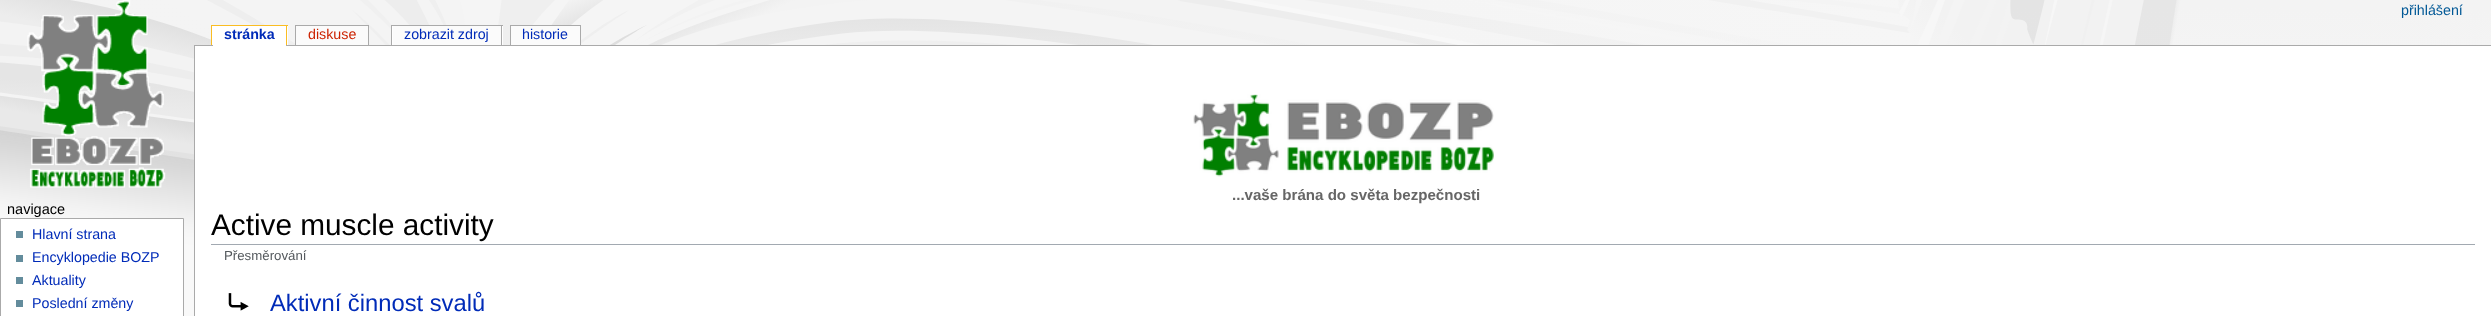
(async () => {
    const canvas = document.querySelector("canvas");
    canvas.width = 2491;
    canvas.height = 316;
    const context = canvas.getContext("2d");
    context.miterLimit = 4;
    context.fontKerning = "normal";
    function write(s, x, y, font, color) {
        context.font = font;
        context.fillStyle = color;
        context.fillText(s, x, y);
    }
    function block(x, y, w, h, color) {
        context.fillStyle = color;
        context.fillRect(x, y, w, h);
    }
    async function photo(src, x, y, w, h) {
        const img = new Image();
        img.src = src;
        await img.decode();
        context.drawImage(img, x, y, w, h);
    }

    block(0, 0, 2491, 316, "rgb(249, 249, 249)");
    await photo("media/1.png", 0, 0, 2491, 263);
    await photo("media/2.png", 27, 0, 139, 188);
    write("přihlášení", 2401, 15, "14.25px Liberation Sans", "rgb(0, 88, 150)");
    block(212, 26, 76, 19, "rgb(255, 255, 255)");
    write("stránka", 224, 39, "bold 14.25px Liberation Sans", "rgb(0, 43, 184)");
    block(211, 25, 77, 1, "rgb(250, 189, 35)");
    block(286, 25, 1, 20, "rgb(250, 189, 35)");
    block(211, 25, 1, 20, "rgb(250, 189, 35)");
    block(194, 45, 2297, 1, "rgb(170, 170, 170)");
    block(213, 45, 73, 1, "rgb(255, 255, 255)");
    block(296, 26, 72, 19, "rgb(251, 251, 251)");
    write("diskuse", 308, 39, "14.25px Liberation Sans", "rgb(204, 34, 0)");
    block(295, 25, 74, 1, "rgb(170, 170, 170)");
    block(368, 25, 1, 20, "rgb(170, 170, 170)");
    block(295, 25, 1, 20, "rgb(170, 170, 170)");
    block(392, 26, 111, 19, "rgb(255, 255, 255)");
    block(393, 26, 108, 19, "rgb(251, 251, 251)");
    write("zobrazit zdroj", 404, 39, "14.25px Liberation Sans", "rgb(0, 43, 184)");
    block(391, 25, 112, 1, "rgb(170, 170, 170)");
    block(501, 25, 1, 20, "rgb(170, 170, 170)");
    block(391, 25, 1, 20, "rgb(170, 170, 170)");
    block(511, 26, 69, 19, "rgb(251, 251, 251)");
    write("historie", 522, 39, "14.25px Liberation Sans", "rgb(0, 43, 184)");
    block(510, 25, 71, 1, "rgb(170, 170, 170)");
    block(580, 25, 1, 20, "rgb(170, 170, 170)");
    block(510, 25, 1, 20, "rgb(170, 170, 170)");
    write("navigace", 7, 214, "14.5px Liberation Sans", "rgb(0, 0, 0)");
    context.fillStyle = "rgb(255, 255, 255)";
    context.beginPath();
    context.rect(0.5, 218.5, 183, 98);
    context.fill();
    context.strokeStyle = "rgb(170, 170, 170)";
    context.stroke();
    block(16, 231, 7, 7, "rgb(99, 140, 156)");
    write("Hlavní strana", 32, 239, "14.25px Liberation Sans", "rgb(0, 43, 184)");
    block(16, 255, 7, 7, "rgb(99, 140, 156)");
    write("Encyklopedie BOZP", 32, 262, "14.25px Liberation Sans", "rgb(0, 43, 184)");
    block(16, 277, 7, 7, "rgb(99, 140, 156)");
    write("Aktuality", 32, 285, "14.25px Liberation Sans", "rgb(0, 43, 184)");
    block(16, 300, 7, 7, "rgb(99, 140, 156)");
    write("Poslední změny", 32, 308, "14.25px Liberation Sans", "rgb(0, 43, 184)");
    block(195, 46, 2296, 270, "rgb(255, 255, 255)");
    block(194, 45, 1, 271, "rgb(170, 170, 170)");
    await photo("media/3.png", 1193, 94, 301, 83);
    write("...vaše brána do světa bezpečnosti", 1232, 200, "bold 15.1px Liberation Sans", "rgb(102, 102, 102)");
    block(211, 244, 2264, 1, "rgb(162, 169, 177)");
    write("Active muscle activity", 211, 235, "29.75px Liberation Sans", "rgb(0, 0, 0)");
    write("Přesměrování", 224, 260, "13.25px Liberation Sans", "rgb(84, 89, 93)");
    await photo("media/4.png", 228, 293, 21, 18);
    write("Aktivní činnost svalů", 270, 311, "23.75px Liberation Sans", "rgb(0, 43, 184)");
})();
